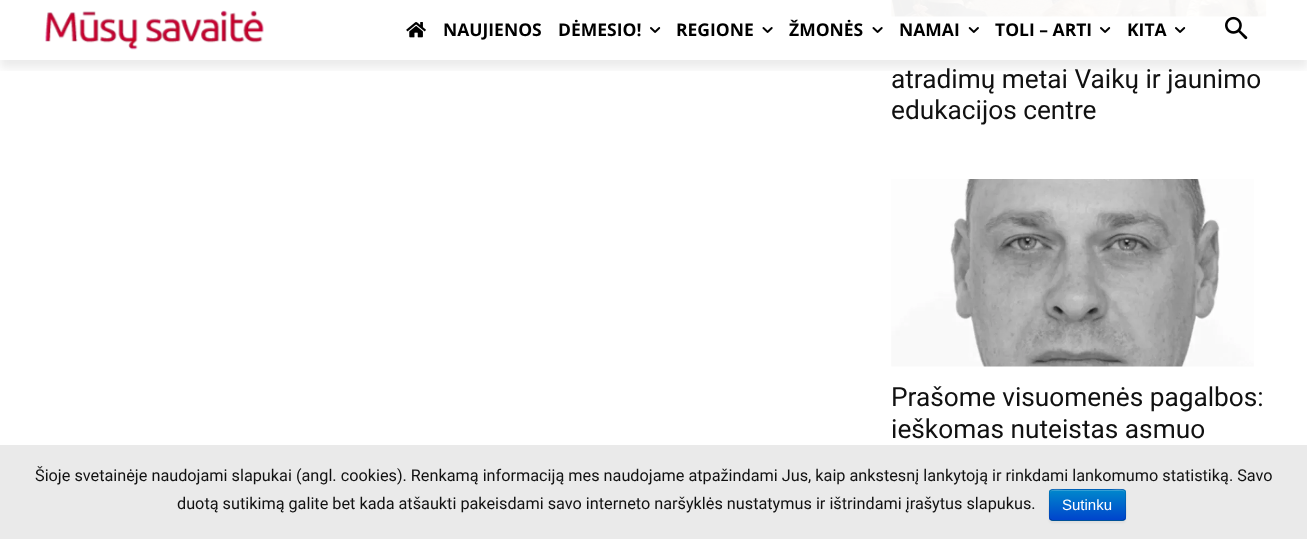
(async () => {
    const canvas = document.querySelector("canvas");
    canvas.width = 1307;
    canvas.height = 539;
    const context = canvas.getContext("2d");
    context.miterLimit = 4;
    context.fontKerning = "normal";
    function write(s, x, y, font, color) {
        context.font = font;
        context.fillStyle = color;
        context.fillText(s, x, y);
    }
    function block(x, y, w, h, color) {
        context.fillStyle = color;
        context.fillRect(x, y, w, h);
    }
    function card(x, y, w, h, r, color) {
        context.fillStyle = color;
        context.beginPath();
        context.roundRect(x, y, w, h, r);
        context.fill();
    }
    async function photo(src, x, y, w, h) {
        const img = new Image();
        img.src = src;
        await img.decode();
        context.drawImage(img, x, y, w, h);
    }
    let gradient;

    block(0, 0, 1307, 539, "rgb(255, 255, 255)");
    await photo("media/7.png", 891, 0, 376, 17);
    block(891, 0, 376, 17, "rgba(255, 255, 255, 0.95)");
    await photo("media/1.png", 45, 10, 219, 40);
    context.save();
    context.beginPath();
    context.rect(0, 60, 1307, 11);
    context.clip();
    context.fillStyle = "rgba(0, 0, 0, 0.08)";
    context.filter = "blur(5px)";
    context.beginPath();
    context.rect(0, 8, 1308, 60);
    context.fill();
    context.filter = "none";
    context.restore();
    await photo("media/2.png", 406, 22, 20, 16);
    write("NAUJIENOS", 443, 36, "bold 17.5px Open Sans", "rgb(0, 0, 0)");
    write("DĖMESIO!", 558, 36, "bold 17.5px Open Sans", "rgb(0, 0, 0)");
    await photo("media/3.png", 650, 27, 11, 6);
    write("REGIONE", 676, 36, "bold 17.5px Open Sans", "rgb(0, 0, 0)");
    await photo("media/4.png", 762, 27, 11, 6);
    write("ŽMONĖS", 789, 36, "bold 17.5px Open Sans", "rgb(0, 0, 0)");
    await photo("media/4.png", 872, 27, 11, 6);
    write("NAMAI", 899, 36, "bold 17.5px Open Sans", "rgb(0, 0, 0)");
    await photo("media/5.png", 968, 27, 11, 6);
    write("TOLI – ARTI", 995, 36, "bold 17.5px Open Sans", "rgb(0, 0, 0)");
    await photo("media/3.png", 1100, 27, 11, 6);
    write("KITA", 1127, 36, "bold 17.5px Open Sans", "rgb(0, 0, 0)");
    await photo("media/3.png", 1175, 27, 11, 6);
    await photo("media/6.png", 1225, 16, 23, 24);
    write("atradimų metai Vaikų ir jaunimo", 891, 88, "26.25px Roboto", "rgb(17, 17, 17)");
    write("edukacijos centre", 891, 119, "26.25px Roboto", "rgb(17, 17, 17)");
    await photo("media/8.png", 891, 179, 363, 188);
    write("Prašome visuomenės pagalbos:", 891, 406, "26.25px Roboto", "rgb(17, 17, 17)");
    write("ieškomas nuteistas asmuo", 891, 438, "26.25px Roboto", "rgb(17, 17, 17)");
    block(0, 445, 1307, 94, "rgb(234, 234, 234)");
    write("Šioje svetainėje naudojami slapukai (angl. cookies). Renkamą informaciją mes naudojame atpažindami Jus, kaip ankstesnį lankytoją ir rinkdami lankomumo statistiką. Savo", 35, 481, "16.25px Roboto", "rgb(17, 17, 17)");
    write("duotą sutikimą galite bet kada atšaukti pakeisdami savo interneto naršyklės nustatymus ir ištrindami įrašytus slapukus.", 177, 509, "16.25px Roboto", "rgb(17, 17, 17)");
    context.fillStyle = "rgba(0, 0, 0, 0.05)";
    context.filter = "blur(1px)";
    context.beginPath();
    context.roundRect(1049, 490, 77, 33, 4);
    context.fill();
    context.filter = "none";
    card(1049, 489, 77, 32, 4, "rgb(0, 109, 204)");
    context.save();
    context.beginPath();
    context.roundRect(1049, 489, 77, 32, 4);
    context.clip();
    gradient = context.createLinearGradient(1088, 490, 1088, 520);
    gradient.addColorStop(0, "rgb(0, 136, 204)");
    gradient.addColorStop(1, "rgb(0, 68, 204)");
    context.fillStyle = gradient;
    context.fillRect(1049, 490, 77, 30);
    context.restore();
    context.fillStyle = "rgba(255, 255, 255, 0.2)";
    context.beginPath();
    context.moveTo(1052, 491);
    context.lineTo(1122, 491);
    context.bezierCurveTo(1124, 491, 1125, 492, 1125, 494);
    context.bezierCurveTo(1125, 487, 1116, 490, 1111, 490);
    context.lineTo(1064, 490);
    context.bezierCurveTo(1059, 490, 1050, 487, 1050, 494);
    context.bezierCurveTo(1050, 492, 1051, 491, 1052, 491);
    context.closePath();
    context.fill();
    context.beginPath();
    context.moveTo(1124.5, 519.5);
    context.lineTo(1123, 520.5);
    context.lineTo(1052, 520.5);
    context.lineTo(1050.5, 519.5);
    context.strokeStyle = "rgba(0, 0, 0, 0.25)";
    context.lineWidth = 1.2;
    context.stroke();
    context.beginPath();
    context.moveTo(1050.5, 519.5);
    context.bezierCurveTo(1048, 517.5, 1049.5, 508, 1049.5, 505);
    context.bezierCurveTo(1049.5, 487, 1046.5, 489.5, 1064, 489.5);
    context.lineTo(1111, 489.5);
    context.bezierCurveTo(1128.5, 489.5, 1125.5, 487, 1125.5, 505);
    context.bezierCurveTo(1125.5, 508, 1127, 517.5, 1124.5, 519.5);
    context.strokeStyle = "rgba(0, 0, 0, 0.1)";
    context.stroke();
    write("Sutinku", 1062, 510, "15px Liberation Sans", "rgb(255, 255, 255)");
})();
